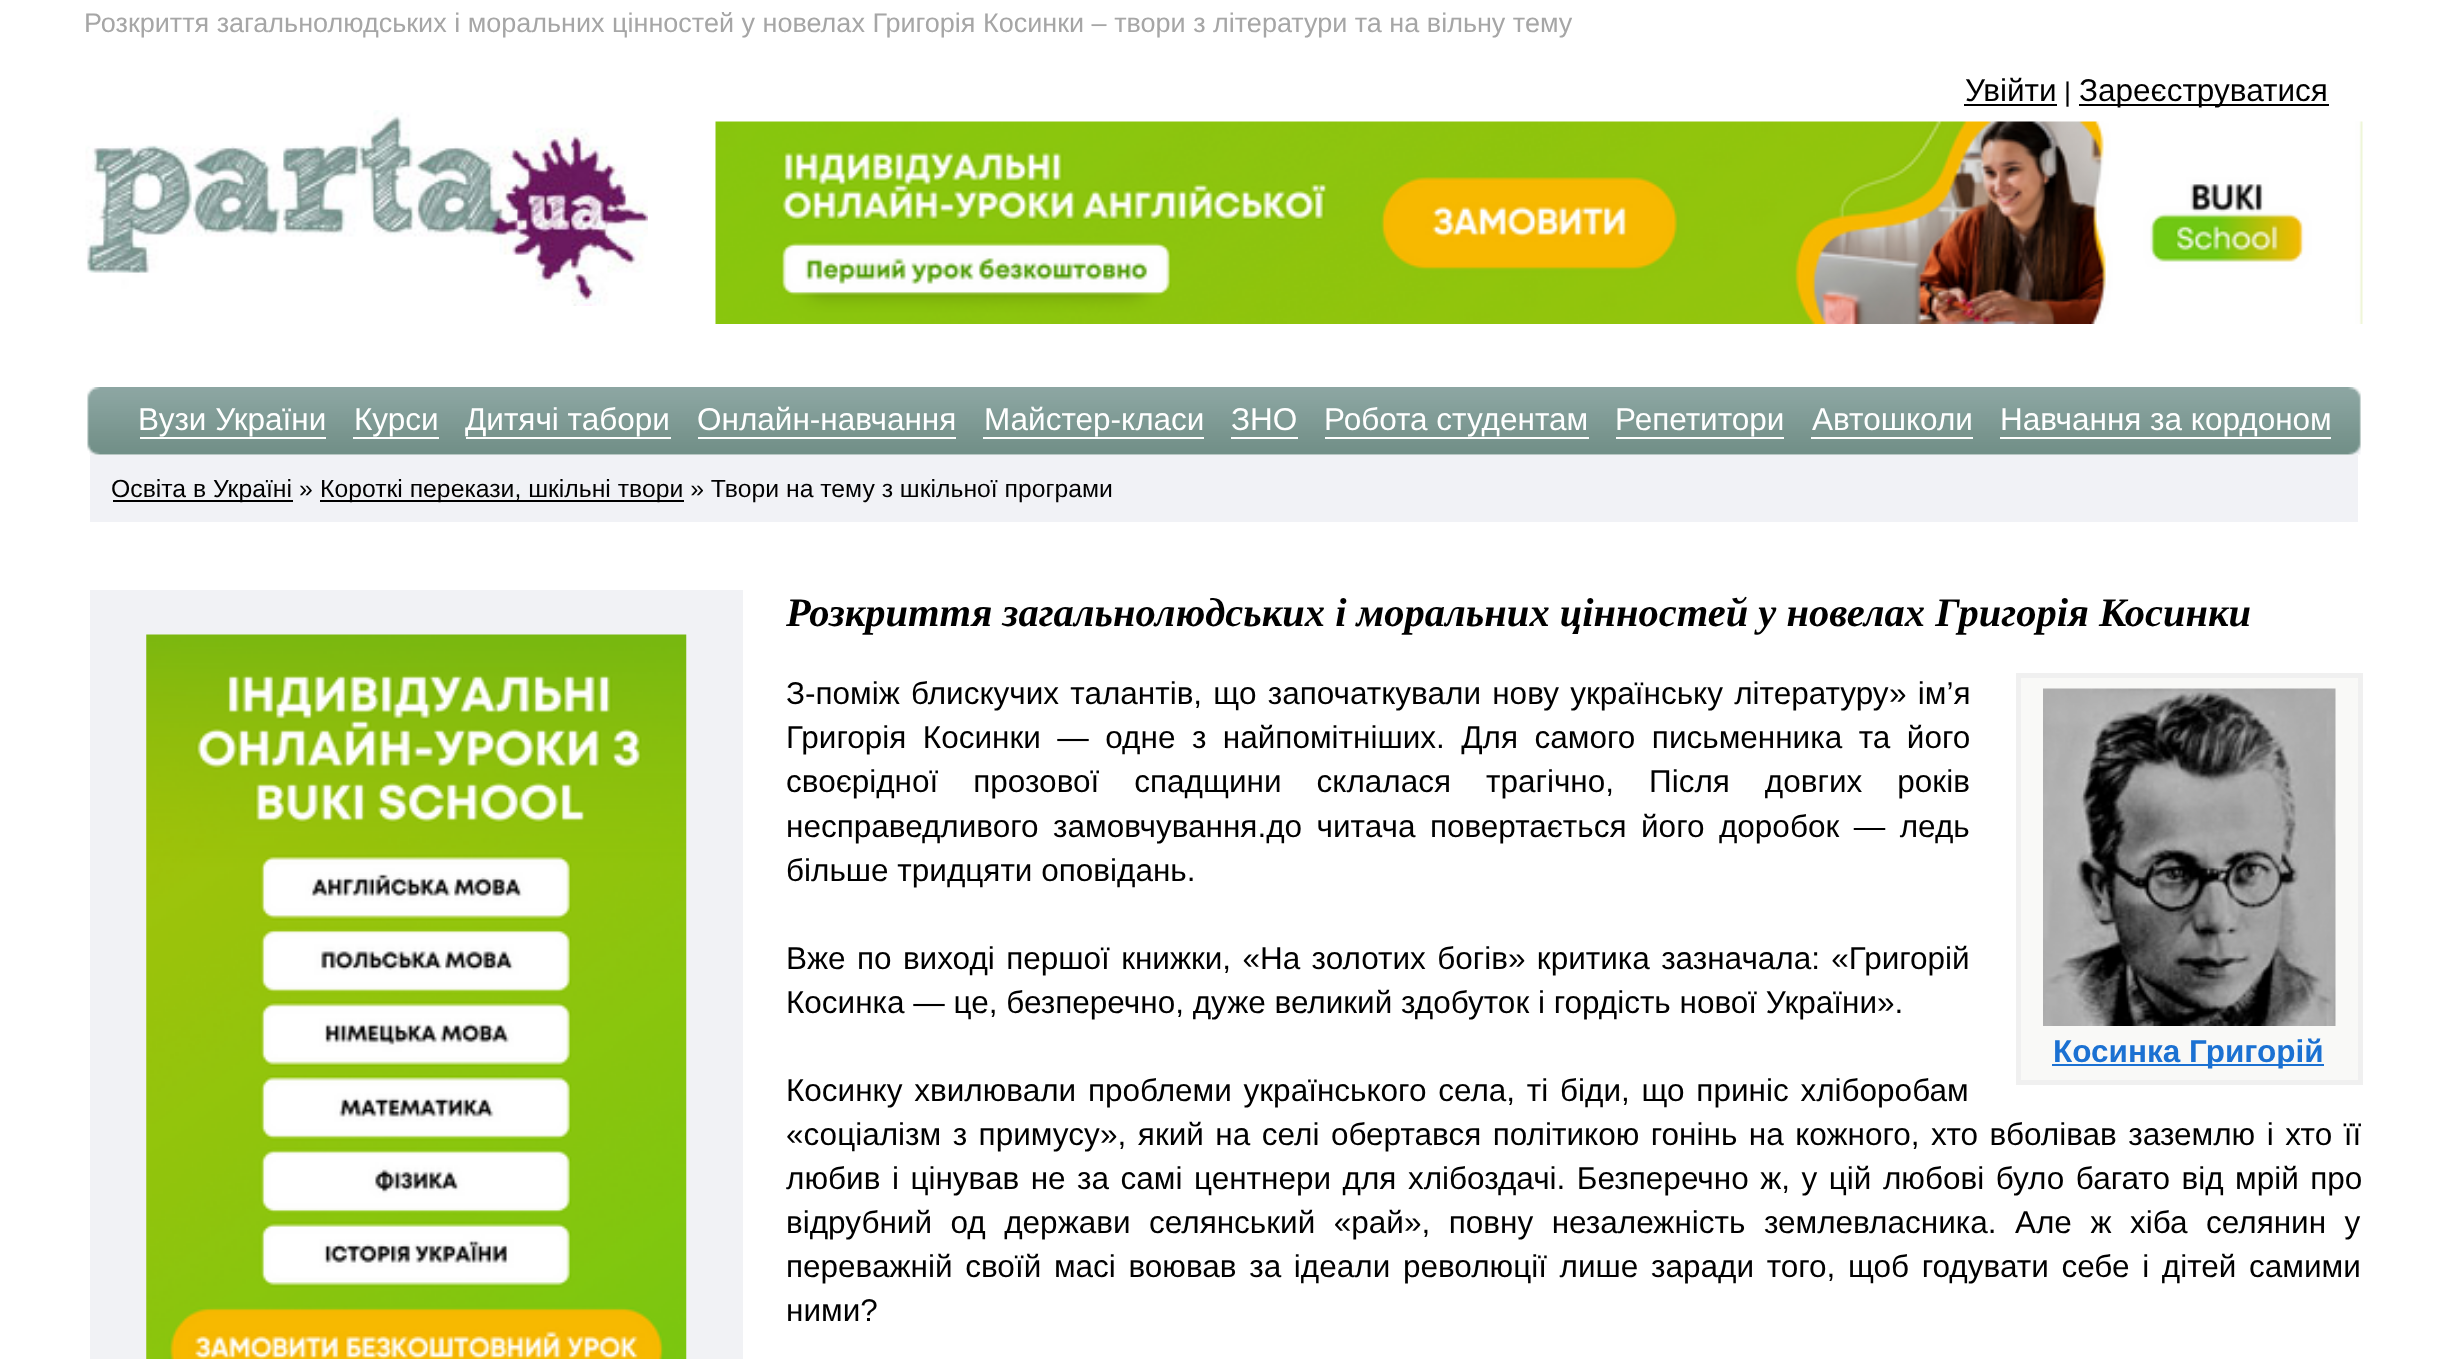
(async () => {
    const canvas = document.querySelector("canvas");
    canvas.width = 2445;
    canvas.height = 1359;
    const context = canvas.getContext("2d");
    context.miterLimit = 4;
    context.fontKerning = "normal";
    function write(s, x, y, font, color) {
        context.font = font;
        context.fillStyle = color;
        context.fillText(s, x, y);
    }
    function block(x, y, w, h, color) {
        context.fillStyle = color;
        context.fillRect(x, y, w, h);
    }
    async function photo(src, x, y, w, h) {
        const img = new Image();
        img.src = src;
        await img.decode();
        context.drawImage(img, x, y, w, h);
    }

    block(0, 0, 2445, 1359, "rgb(255, 255, 255)");
    write("Розкриття загальнолюдських і моральних цінностей у новелах Григорія Косинки – твори з літератури та на вільну тему", 84, 32, "27px Liberation Sans", "rgb(166, 166, 166)");
    write("Увійти", 1965, 101, "31.5px Liberation Sans", "rgb(0, 0, 0)");
    block(1964, 104, 93, 2, "rgb(0, 0, 0)");
    write("|", 2064, 101, "27px Liberation Sans", "rgb(0, 0, 0)");
    block(2079, 104, 250, 2, "rgb(0, 0, 0)");
    write("Зареєструватися", 2079, 101, "31.5px Liberation Sans", "rgb(0, 0, 0)");
    await photo("media/1.png", 85, 110, 563, 196);
    await photo("media/2.png", 715, 121, 1648, 203);
    await photo("media/3.png", 87, 387, 2274, 68);
    write("Вузи України", 138, 430, "31.5px Liberation Sans", "rgb(255, 255, 255)");
    block(140, 437, 186, 2, "rgb(255, 255, 255)");
    write("Курси", 354, 430, "31.5px Liberation Sans", "rgb(255, 255, 255)");
    block(353, 437, 86, 2, "rgb(255, 255, 255)");
    write("Дитячі табори", 465, 430, "31.5px Liberation Sans", "rgb(255, 255, 255)");
    block(466, 437, 205, 2, "rgb(255, 255, 255)");
    write("Онлайн-навчання", 697, 430, "31.5px Liberation Sans", "rgb(255, 255, 255)");
    block(698, 437, 258, 2, "rgb(255, 255, 255)");
    write("Майстер-класи", 984, 430, "31.5px Liberation Sans", "rgb(255, 255, 255)");
    block(983, 437, 221, 2, "rgb(255, 255, 255)");
    write("ЗНО", 1231, 430, "31.5px Liberation Sans", "rgb(255, 255, 255)");
    block(1231, 437, 67, 2, "rgb(255, 255, 255)");
    write("Робота студентам", 1324, 430, "31.5px Liberation Sans", "rgb(255, 255, 255)");
    block(1325, 437, 264, 2, "rgb(255, 255, 255)");
    write("Репетитори", 1615, 430, "31.5px Liberation Sans", "rgb(255, 255, 255)");
    block(1616, 437, 168, 2, "rgb(255, 255, 255)");
    write("Автошколи", 1812, 430, "31.5px Liberation Sans", "rgb(255, 255, 255)");
    block(1811, 437, 162, 2, "rgb(255, 255, 255)");
    write("Навчання за кордоном", 2000, 430, "31.5px Liberation Sans", "rgb(255, 255, 255)");
    block(2000, 437, 331, 2, "rgb(255, 255, 255)");
    block(90, 455, 2268, 67, "rgb(241, 242, 246)");
    block(113, 500, 180, 2, "rgb(0, 0, 0)");
    write("Освіта в Україні »", 111, 497, "24.75px Liberation Sans", "rgb(0, 0, 0)");
    block(320, 500, 364, 2, "rgb(0, 0, 0)");
    write("Короткі перекази, шкільні твори » Твори на тему з шкільної програми", 320, 497, "24.75px Liberation Sans", "rgb(0, 0, 0)");
    block(90, 590, 653, 769, "rgb(241, 242, 245)");
    await photo("media/4.png", 146, 634, 541, 725);
    write("Розкриття загальнолюдських і моральних цінностей у новелах Григорія Косинки", 786, 626, "italic bold 40.5px Liberation Serif", "rgb(0, 0, 0)");
    context.wordSpacing = "2.5px";
    write("З-поміж блискучих талантів, що започаткували нову українську літературу» ім’я", 786, 704, "31.5px Liberation Sans", "rgb(0, 0, 0)");
    context.wordSpacing = "7.75px";
    write("Григорія Косинки — одне з найпомітніших. Для самого письменника та його", 786, 748, "31.5px Liberation Sans", "rgb(0, 0, 0)");
    context.wordSpacing = "26.25px";
    write("своєрідної прозової спадщини склалася трагічно, Після довгих років", 786, 792, "31.5px Liberation Sans", "rgb(0, 0, 0)");
    context.wordSpacing = "5.75px";
    write("несправедливого замовчування.до читача повертається його доробок — ледь", 786, 837, "31.5px Liberation Sans", "rgb(0, 0, 0)");
    context.wordSpacing = "0px";
    write("більше тридцяти оповідань.", 786, 881, "31.5px Liberation Sans", "rgb(0, 0, 0)");
    context.wordSpacing = "2.6px";
    write("Вже по виході першої книжки, «На золотих богів» критика зазначала: «Григорій", 786, 969, "31.5px Liberation Sans", "rgb(0, 0, 0)");
    context.wordSpacing = "0px";
    write("Косинка — це, безперечно, дуже великий здобуток і гордість нової України».", 786, 1013, "31.5px Liberation Sans", "rgb(0, 0, 0)");
    context.wordSpacing = "3px";
    write("Косинку хвилювали проблеми українського села, ті біди, що приніс хліборобам", 786, 1101, "31.5px Liberation Sans", "rgb(0, 0, 0)");
    context.wordSpacing = "2.75px";
    write("«соціалізм з примусу», який на селі обертався політикою гонінь на кожного, хто вболівав заземлю і хто її", 786, 1145, "31.5px Liberation Sans", "rgb(0, 0, 0)");
    write("любив і цінував не за самі центнери для хлібоздачі. Безперечно ж, у цій любові було багато від мрій про", 786, 1189, "31.5px Liberation Sans", "rgb(0, 0, 0)");
    context.wordSpacing = "9.75px";
    write("відрубний од держави селянський «рай», повну незалежність землевласника. Але ж хіба селянин у", 786, 1233, "31.5px Liberation Sans", "rgb(0, 0, 0)");
    context.wordSpacing = "3.9px";
    write("переважній своїй масі воював за ідеали революції лише заради того, щоб годувати себе і дітей самими", 786, 1277, "31.5px Liberation Sans", "rgb(0, 0, 0)");
    context.wordSpacing = "0px";
    write("ними?", 786, 1321, "31.5px Liberation Sans", "rgb(0, 0, 0)");
    context.fillStyle = "rgb(249, 249, 247)";
    context.beginPath();
    context.rect(2018.5, 675.5, 342, 407);
    context.fill();
    context.strokeStyle = "rgb(240, 240, 240)";
    context.lineWidth = 5;
    context.stroke();
    await photo("media/5.png", 2043, 688, 293, 338);
    block(2052, 1064, 272, 2, "rgb(27, 113, 210)");
    write("Косинка Григорій", 2053, 1062, "bold 31.5px Liberation Sans", "rgb(27, 113, 210)");
})();
